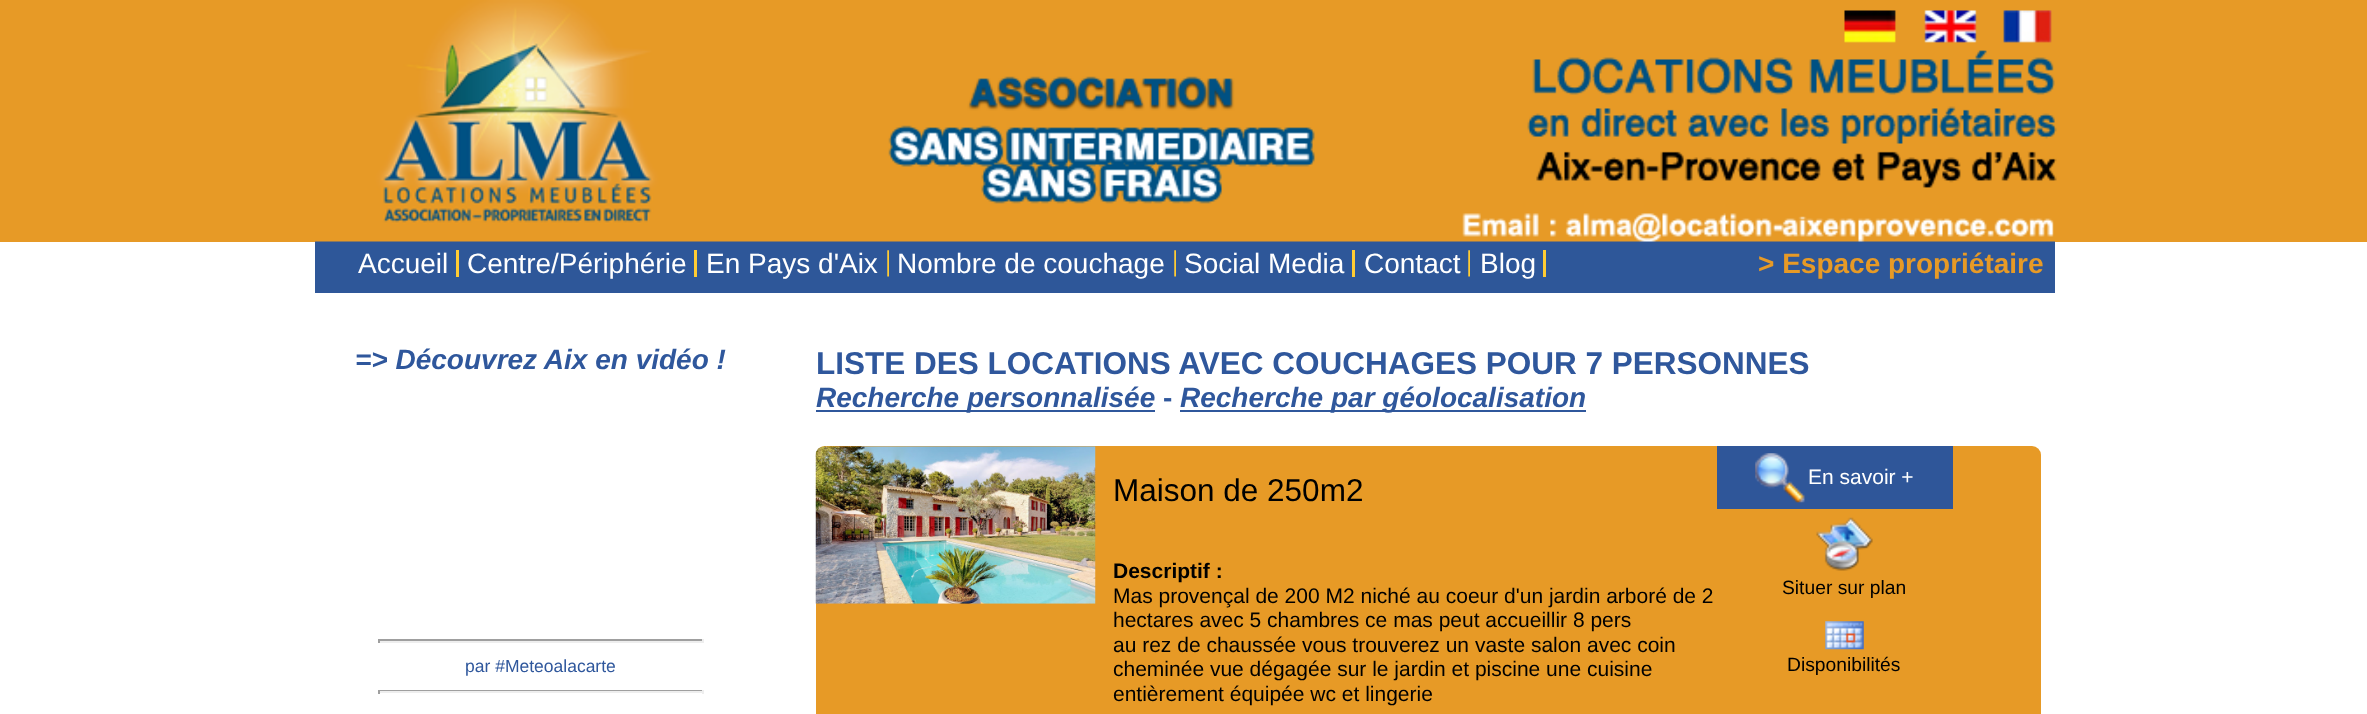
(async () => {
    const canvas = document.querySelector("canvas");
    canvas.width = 2367;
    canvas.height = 714;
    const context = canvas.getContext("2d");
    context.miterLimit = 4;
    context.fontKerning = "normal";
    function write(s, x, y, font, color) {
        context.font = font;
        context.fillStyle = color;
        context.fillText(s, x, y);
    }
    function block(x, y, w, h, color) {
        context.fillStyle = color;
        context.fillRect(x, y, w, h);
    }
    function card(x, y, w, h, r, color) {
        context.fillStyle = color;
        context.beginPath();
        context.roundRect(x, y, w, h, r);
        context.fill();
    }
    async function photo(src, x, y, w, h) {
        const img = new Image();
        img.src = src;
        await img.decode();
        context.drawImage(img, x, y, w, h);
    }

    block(0, 0, 2367, 714, "rgb(255, 255, 255)");
    block(0, 0, 2367, 242, "rgb(231, 154, 38)");
    block(315, 241, 1740, 52, "rgb(46, 87, 153)");
    await photo("media/1.png", 315, 0, 1742, 242);
    block(456, 250, 3, 27, "rgb(255, 204, 51)");
    write("Accueil", 358, 273, "28px Liberation Sans", "rgb(255, 255, 255)");
    block(694, 250, 3, 27, "rgb(255, 204, 51)");
    write("Centre/Périphérie", 467, 273, "28px Liberation Sans", "rgb(255, 255, 255)");
    await photo("media/2.png", 887, 250, 2, 27);
    write("En Pays d'Aix", 706, 273, "28px Liberation Sans", "rgb(255, 255, 255)");
    await photo("media/2.png", 1174, 250, 2, 27);
    write("Nombre de couchage", 897, 273, "28px Liberation Sans", "rgb(255, 255, 255)");
    block(1352, 250, 3, 27, "rgb(255, 204, 51)");
    write("Social Media", 1184, 273, "28px Liberation Sans", "rgb(255, 255, 255)");
    await photo("media/2.png", 1468, 250, 2, 27);
    write("Contact", 1364, 273, "28px Liberation Sans", "rgb(255, 255, 255)");
    block(1543, 250, 3, 27, "rgb(255, 204, 51)");
    write("Blog", 1480, 273, "28px Liberation Sans", "rgb(255, 255, 255)");
    write("> Espace propriétaire", 1758, 273, "bold 28px Liberation Sans", "rgb(231, 154, 38)");
    write("=> Découvrez Aix en vidéo !", 355, 369, "italic bold 28px Liberation Sans", "rgb(47, 87, 156)");
    block(378, 639, 326, 2, "rgb(159, 159, 159)");
    block(702, 639, 2, 4, "rgb(238, 238, 238)");
    block(378, 641, 326, 2, "rgb(238, 238, 238)");
    block(378, 639, 2, 4, "rgb(159, 159, 159)");
    write("par #Meteoalacarte", 465, 672, "17.5px Liberation Sans", "rgb(47, 87, 156)");
    block(378, 690, 326, 1, "rgb(159, 159, 159)");
    block(702, 690, 2, 4, "rgb(238, 238, 238)");
    block(378, 691, 326, 2, "rgb(238, 238, 238)");
    block(378, 690, 2, 4, "rgb(159, 159, 159)");
    write("LISTE DES LOCATIONS AVEC COUCHAGES POUR 7 PERSONNES", 816, 374, "bold 31.5px Liberation Sans", "rgb(47, 87, 156)");
    block(816, 410, 339, 2, "rgb(47, 87, 156)");
    write("Recherche personnalisée", 816, 407, "italic bold 28px Liberation Sans", "rgb(47, 87, 156)");
    write("-", 1163, 407, "bold 28px Liberation Sans", "rgb(47, 87, 156)");
    block(1180, 410, 406, 2, "rgb(47, 87, 156)");
    write("Recherche par géolocalisation", 1180, 407, "italic bold 28px Liberation Sans", "rgb(47, 87, 156)");
    card(816, 446, 1225, 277, 9, "rgb(231, 154, 38)");
    await photo("media/3.png", 815, 446, 281, 158);
    write("Maison de 250m2", 1113, 501, "31.5px Liberation Sans", "rgb(0, 0, 0)");
    write("Descriptif :", 1113, 578, "bold 21px Liberation Sans", "rgb(0, 0, 0)");
    write("Mas provençal de 200 M2 niché au coeur d'un jardin arboré de 2", 1113, 603, "21px Liberation Sans", "rgb(0, 0, 0)");
    write("hectares avec 5 chambres ce mas peut accueillir 8 pers", 1113, 627, "21px Liberation Sans", "rgb(0, 0, 0)");
    write("au rez de chaussée vous trouverez un vaste salon avec coin", 1113, 652, "21px Liberation Sans", "rgb(0, 0, 0)");
    write("cheminée vue dégagée sur le jardin et piscine une cuisine", 1113, 676, "21px Liberation Sans", "rgb(0, 0, 0)");
    write("entièrement équipée wc et lingerie", 1113, 701, "21px Liberation Sans", "rgb(0, 0, 0)");
    block(1717, 446, 236, 63, "rgb(47, 86, 153)");
    await photo("media/4.png", 1755, 453, 50, 50);
    write("En savoir +", 1808, 484, "21px Liberation Sans", "rgb(255, 255, 255)");
    await photo("media/5.png", 1816, 517, 57, 54);
    write("Situer sur plan", 1782, 594, "19.25px Liberation Sans", "rgb(0, 0, 0)");
    await photo("media/6.png", 1825, 621, 39, 29);
    write("Disponibilités", 1787, 671, "19.25px Liberation Sans", "rgb(0, 0, 0)");
})();
